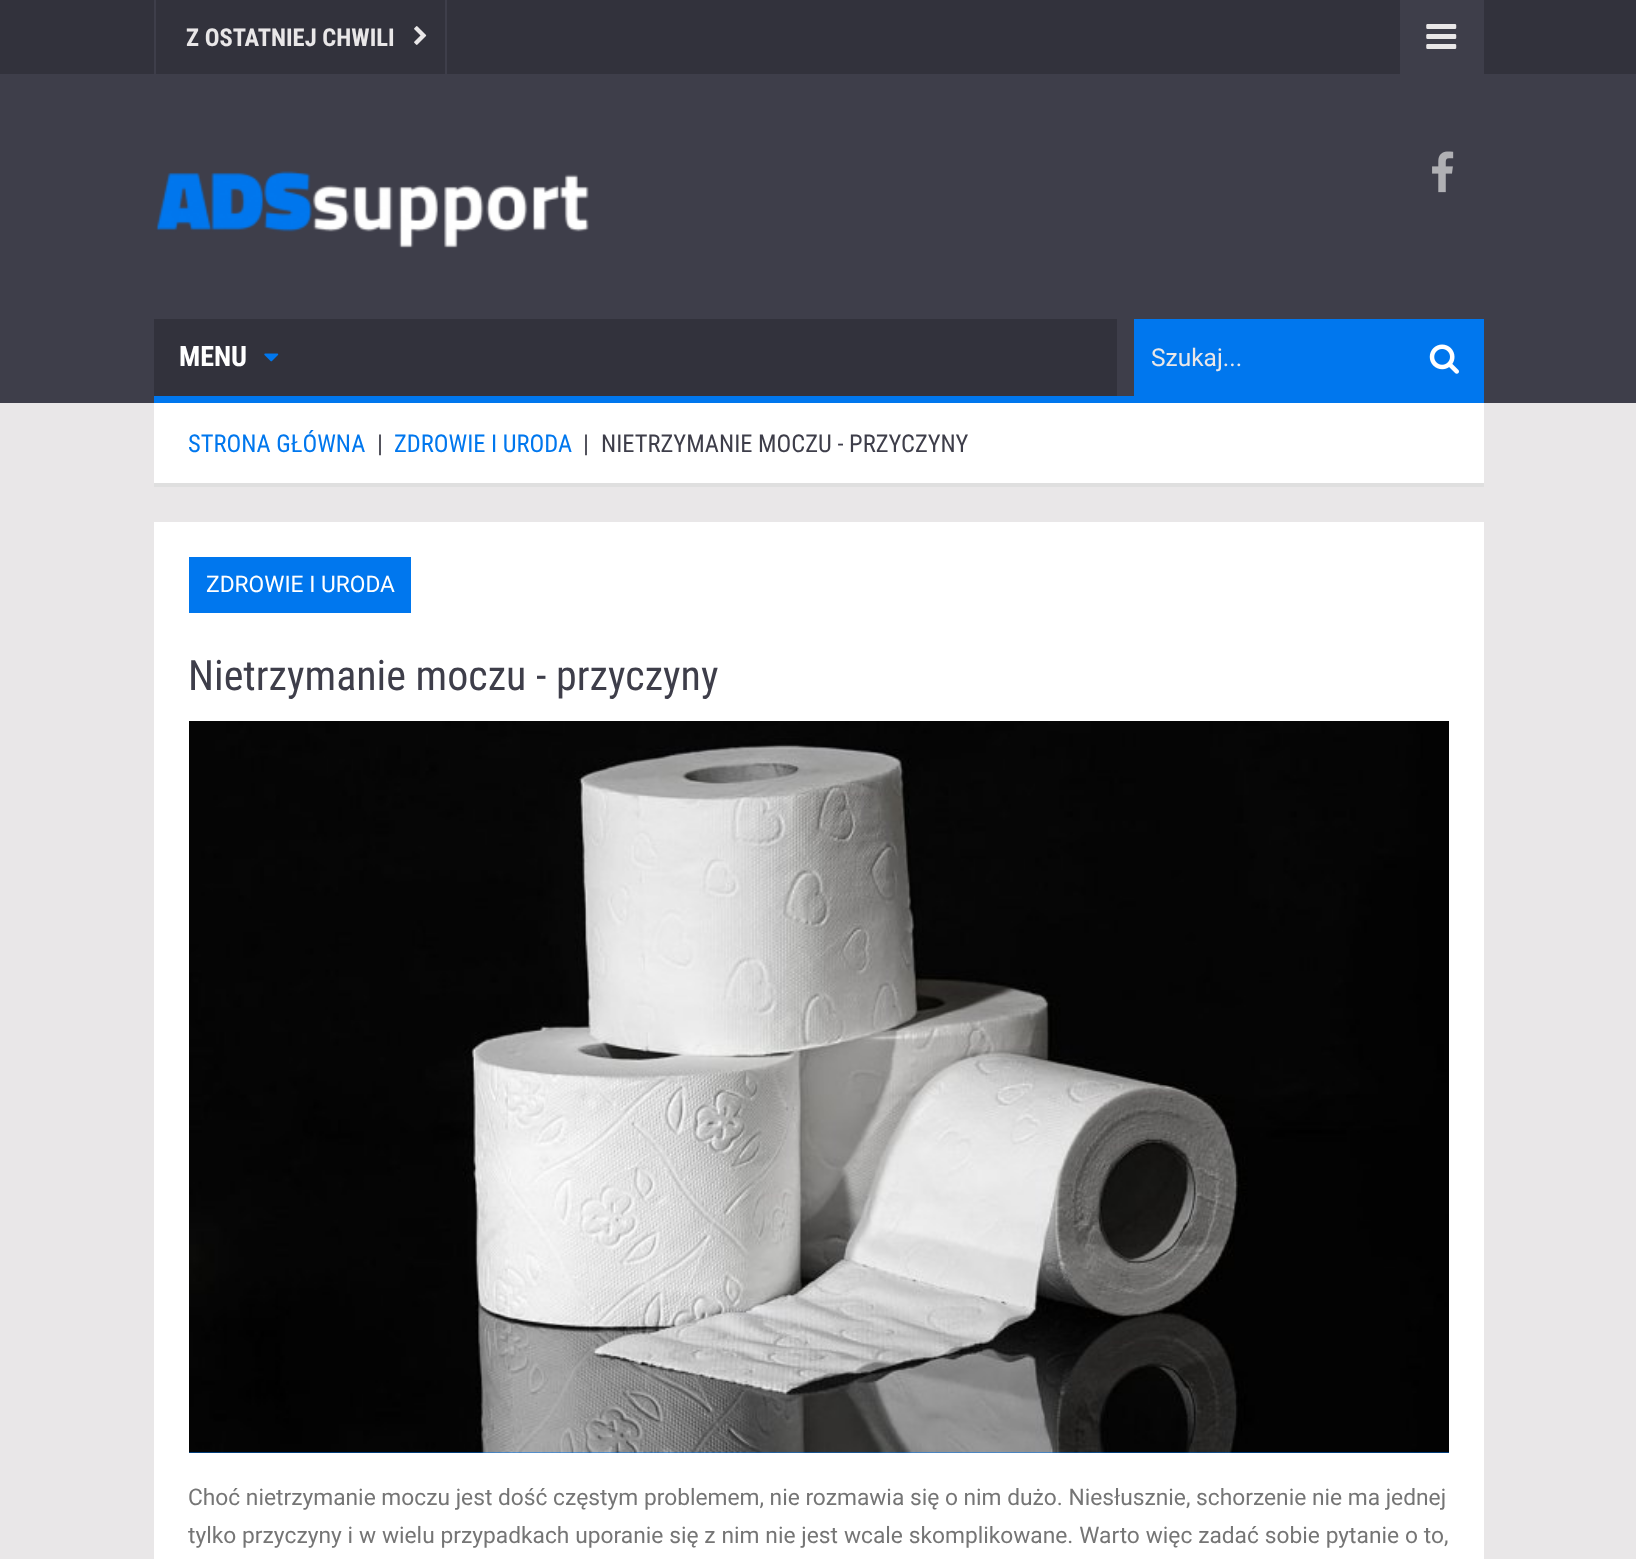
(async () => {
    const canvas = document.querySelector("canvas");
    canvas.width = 1636;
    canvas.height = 1559;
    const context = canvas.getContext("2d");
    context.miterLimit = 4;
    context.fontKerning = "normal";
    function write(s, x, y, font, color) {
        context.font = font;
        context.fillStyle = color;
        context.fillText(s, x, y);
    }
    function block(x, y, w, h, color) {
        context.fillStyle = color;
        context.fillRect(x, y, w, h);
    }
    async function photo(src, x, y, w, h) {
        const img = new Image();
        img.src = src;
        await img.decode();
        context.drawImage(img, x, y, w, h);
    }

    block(0, 0, 1636, 1559, "rgb(233, 231, 232)");
    block(0, 74, 1636, 329, "rgb(62, 62, 74)");
    block(0, 0, 1636, 74, "rgb(50, 50, 60)");
    block(445, 0, 2, 74, "rgb(62, 62, 74)");
    block(154, 0, 2, 74, "rgb(62, 62, 74)");
    write("Z OSTATNIEJ CHWILI", 186, 46, "bold 24.5px Roboto Condensed", "rgb(233, 231, 232)");
    await photo("media/1.png", 414, 26, 13, 19);
    block(1400, 0, 84, 74, "rgb(62, 62, 74)");
    await photo("media/2.png", 1426, 24, 31, 25);
    await photo("media/3.png", 156, 171, 433, 77);
    await photo("media/4.png", 1432, 151, 22, 42);
    block(154, 319, 963, 77, "rgb(50, 50, 60)");
    block(154, 396, 1330, 7, "rgb(0, 119, 238)");
    write("MENU", 179, 366, "bold 28px Roboto Condensed", "rgb(255, 255, 255)");
    await photo("media/5.png", 264, 353, 15, 9);
    block(1134, 319, 350, 77, "rgb(0, 119, 238)");
    write("Szukaj...", 1151, 366, "24.5px Roboto", "rgb(233, 231, 232)");
    await photo("media/6.png", 1429, 344, 30, 30);
    block(154, 403, 1330, 80, "rgb(255, 255, 255)");
    block(154, 483, 1330, 4, "rgb(223, 223, 223)");
    write("STRONA GŁÓWNA", 188, 452, "24.5px Roboto Condensed", "rgb(0, 119, 238)");
    write("|", 377, 452, "24.5px Roboto Condensed", "rgb(62, 62, 74)");
    write("ZDROWIE I URODA", 394, 452, "24.5px Roboto Condensed", "rgb(0, 119, 238)");
    write("|", 583, 452, "24.5px Roboto Condensed", "rgb(62, 62, 74)");
    write("NIETRZYMANIE MOCZU - PRZYCZYNY", 601, 452, "24.5px Roboto Condensed", "rgb(62, 62, 74)");
    block(154, 522, 1330, 1037, "rgb(255, 255, 255)");
    block(189, 557, 222, 56, "rgb(0, 119, 238)");
    write("ZDROWIE I URODA", 206, 592, "22.75px Roboto", "rgb(255, 255, 255)");
    write("Nietrzymanie moczu - przyczyny", 188, 690, "42px Roboto Condensed", "rgb(62, 62, 74)");
    block(189, 1452, 1260, 1, "rgb(0, 119, 238)");
    await photo("media/7.png", 189, 721, 1260, 732);
    write("Choć nietrzymanie moczu jest dość częstym problemem, nie rozmawia się o nim dużo. Niesłusznie, schorzenie nie ma jednej", 188, 1505, "22.75px Roboto", "rgb(117, 117, 117)");
    context.wordSpacing = "0.2px";
    write("tylko przyczyny i w wielu przypadkach uporanie się z nim nie jest wcale skomplikowane. Warto więc zadać sobie pytanie o to,", 188, 1543, "22.75px Roboto", "rgb(117, 117, 117)");
})();
